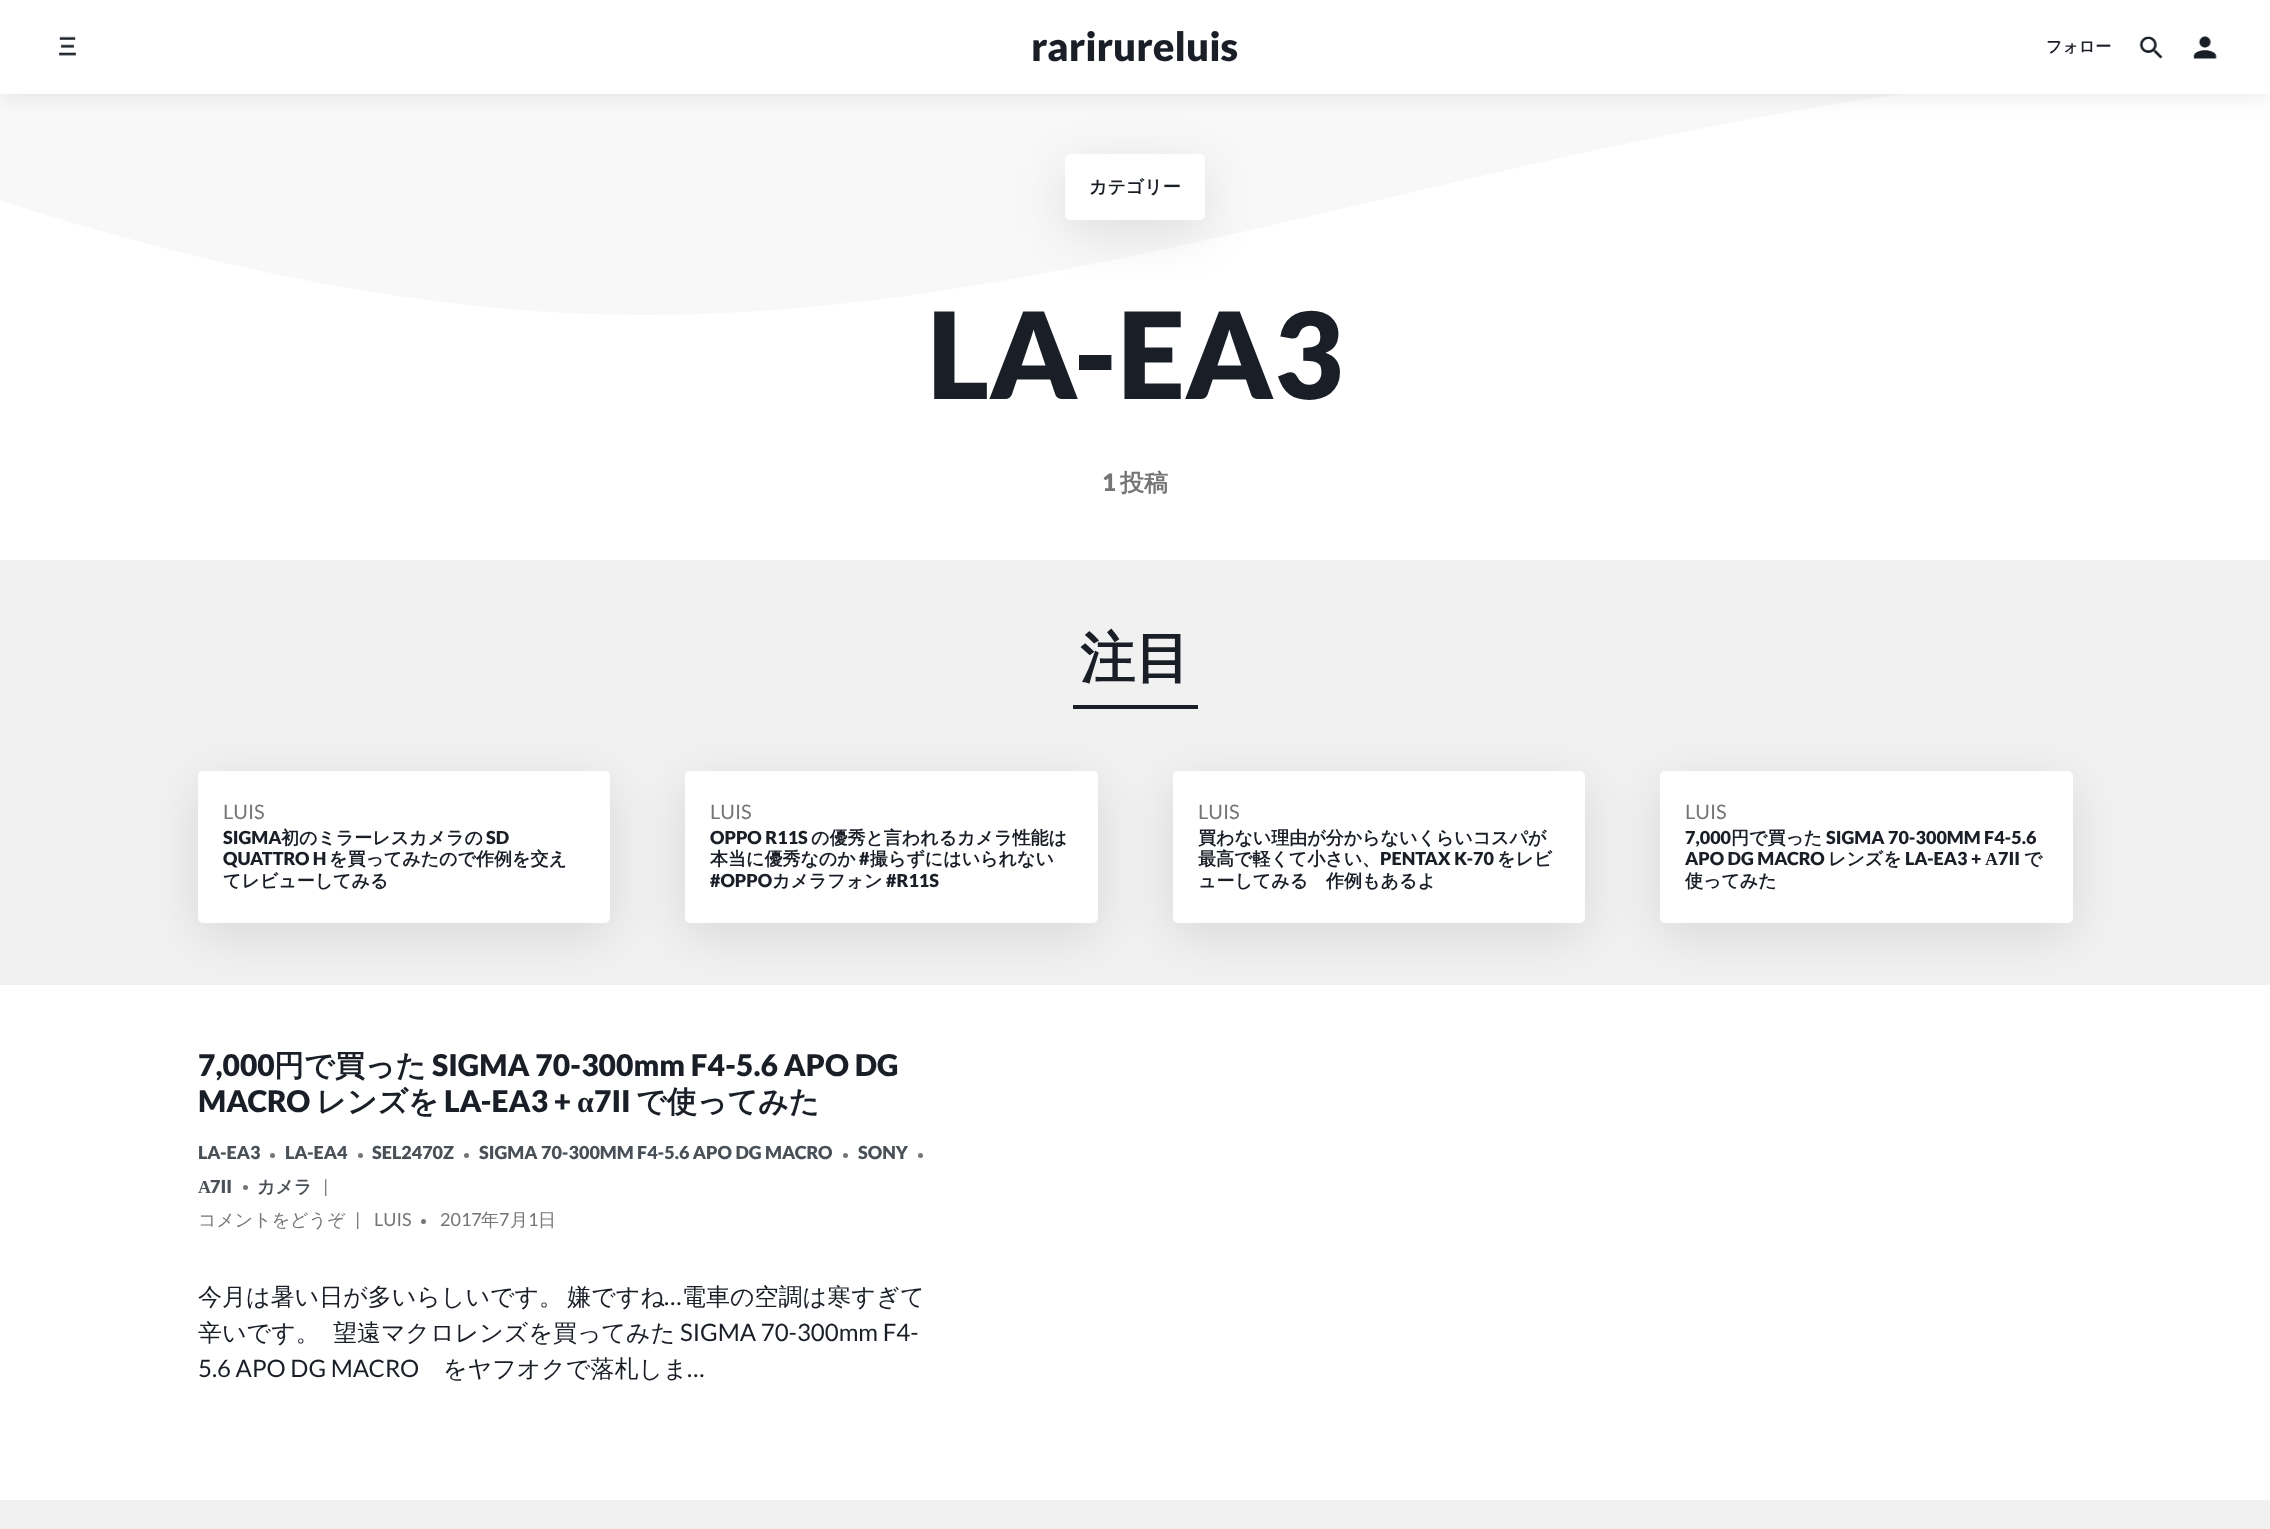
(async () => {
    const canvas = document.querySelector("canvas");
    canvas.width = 2270;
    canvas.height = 1529;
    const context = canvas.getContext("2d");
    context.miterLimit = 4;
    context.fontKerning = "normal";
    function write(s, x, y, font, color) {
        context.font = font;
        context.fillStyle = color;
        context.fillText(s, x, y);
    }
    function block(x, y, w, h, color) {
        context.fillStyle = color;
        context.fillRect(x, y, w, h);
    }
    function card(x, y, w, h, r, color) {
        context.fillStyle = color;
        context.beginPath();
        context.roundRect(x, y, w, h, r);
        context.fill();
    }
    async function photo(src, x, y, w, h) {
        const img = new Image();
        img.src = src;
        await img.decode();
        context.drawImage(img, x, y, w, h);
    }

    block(0, 0, 2270, 1529, "rgb(255, 255, 255)");
    context.fillStyle = "rgb(248, 248, 248)";
    context.beginPath();
    context.moveTo(-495, 13);
    context.lineTo(-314, 85);
    context.bezierCurveTo(-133, 158, 230, 302, 592, 314);
    context.bezierCurveTo(954, 327, 1316, 205, 1678, 133);
    context.bezierCurveTo(2040, 60, 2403, 38, 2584, 25);
    context.lineTo(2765, 13);
    context.lineTo(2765, -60);
    context.lineTo(-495, -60);
    context.closePath();
    context.fill();
    context.fillStyle = "rgba(0, 0, 0, 0.1)";
    context.filter = "blur(12.5px)";
    context.beginPath();
    context.rect(0, 0, 2270, 94);
    context.fill();
    context.filter = "none";
    context.filter = "blur(25px)";
    context.beginPath();
    context.roundRect(1065, 166, 140, 67, 5);
    context.fill();
    context.filter = "none";
    block(0, 0, 2270, 94, "rgb(255, 255, 255)");
    await photo("media/1.png", 59, 36, 17, 20);
    write("rarirureluis", 1031, 61, "900 40px Lato", "rgb(25, 30, 39)");
    write("フォロー", 2046, 52, "bold 16px WenQuanYi Zen Hei", "rgb(25, 30, 39)");
    await photo("media/2.png", 2139, 36, 24, 23);
    await photo("media/3.png", 2193, 36, 24, 23);
    card(1065, 154, 140, 66, 5, "rgb(255, 255, 255)");
    write("カテゴリー", 1089, 193, "bold 18px WenQuanYi Zen Hei", "rgb(25, 30, 39)");
    write("LA-EA3", 927, 399, "900 120px Lato", "rgb(25, 30, 39)");
    write("1", 1102, 491, "900 24px Lato", "rgb(117, 117, 117)");
    write("投稿", 1120, 491, "bold 24px WenQuanYi Zen Hei", "rgb(117, 117, 117)");
    block(0, 560, 2270, 425, "rgb(241, 241, 241)");
    write("注目", 1080, 677, "bold 55px WenQuanYi Zen Hei", "rgb(25, 30, 39)");
    block(1073, 705, 125, 4, "rgb(25, 30, 39)");
    context.fillStyle = "rgba(0, 0, 0, 0.1)";
    context.filter = "blur(25px)";
    context.beginPath();
    context.roundRect(198, 784, 412, 151, 5);
    context.fill();
    context.filter = "none";
    card(198, 771, 412, 152, 5, "rgb(255, 255, 255)");
    write("LUIS", 223, 819, "20px Lato", "rgb(117, 117, 117)");
    write("SIGMA", 223, 844, "900 18px Lato", "rgb(25, 30, 39)");
    write("初のミラーレスカメラの", 281, 844, "bold 18px WenQuanYi Zen Hei", "rgb(25, 30, 39)");
    write("SD", 486, 844, "900 18px Lato", "rgb(25, 30, 39)");
    write("QUATTRO H", 223, 865, "900 18px Lato", "rgb(25, 30, 39)");
    write("を買ってみたので作例を交え", 329, 865, "bold 18px WenQuanYi Zen Hei", "rgb(25, 30, 39)");
    write("てレビューしてみる", 223, 887, "bold 18px WenQuanYi Zen Hei", "rgb(25, 30, 39)");
    context.fillStyle = "rgba(0, 0, 0, 0.1)";
    context.filter = "blur(25px)";
    context.beginPath();
    context.roundRect(685, 784, 413, 151, 5);
    context.fill();
    context.filter = "none";
    card(685, 771, 413, 152, 5, "rgb(255, 255, 255)");
    write("LUIS", 710, 819, "20px Lato", "rgb(117, 117, 117)");
    write("OPPO R11S", 710, 844, "900 18px Lato", "rgb(25, 30, 39)");
    write("の優秀と言われるカメラ性能は", 811, 844, "bold 18px WenQuanYi Zen Hei", "rgb(25, 30, 39)");
    write("本当に優秀なのか", 710, 865, "bold 18px WenQuanYi Zen Hei", "rgb(25, 30, 39)");
    write("#", 859, 865, "900 18px Lato", "rgb(25, 30, 39)");
    write("撮らずにはいられない", 870, 865, "bold 18px WenQuanYi Zen Hei", "rgb(25, 30, 39)");
    write("#OPPO", 710, 887, "900 18px Lato", "rgb(25, 30, 39)");
    write("カメラフォン", 772, 887, "bold 18px WenQuanYi Zen Hei", "rgb(25, 30, 39)");
    write("#R11S", 886, 887, "900 18px Lato", "rgb(25, 30, 39)");
    context.fillStyle = "rgba(0, 0, 0, 0.1)";
    context.filter = "blur(25px)";
    context.beginPath();
    context.roundRect(1173, 784, 412, 151, 5);
    context.fill();
    context.filter = "none";
    card(1173, 771, 412, 152, 5, "rgb(255, 255, 255)");
    write("LUIS", 1198, 819, "20px Lato", "rgb(117, 117, 117)");
    write("買わない理由が分からないくらいコスパが", 1198, 844, "bold 18px WenQuanYi Zen Hei", "rgb(25, 30, 39)");
    write("最高で軽くて小さい、", 1198, 865, "bold 18px WenQuanYi Zen Hei", "rgb(25, 30, 39)");
    write("PENTAX K-70", 1380, 865, "900 18px Lato", "rgb(25, 30, 39)");
    write("をレビ", 1497, 865, "bold 18px WenQuanYi Zen Hei", "rgb(25, 30, 39)");
    write("ューしてみる　作例もあるよ", 1198, 887, "bold 18px WenQuanYi Zen Hei", "rgb(25, 30, 39)");
    context.fillStyle = "rgba(0, 0, 0, 0.1)";
    context.filter = "blur(25px)";
    context.beginPath();
    context.roundRect(1660, 784, 413, 151, 5);
    context.fill();
    context.filter = "none";
    card(1660, 771, 413, 152, 5, "rgb(255, 255, 255)");
    write("LUIS", 1685, 819, "20px Lato", "rgb(117, 117, 117)");
    write("7,000", 1685, 844, "900 18px Lato", "rgb(25, 30, 39)");
    write("円で買った", 1731, 844, "bold 18px WenQuanYi Zen Hei", "rgb(25, 30, 39)");
    write("SIGMA 70-300MM F4-5.6", 1826, 844, "900 18px Lato", "rgb(25, 30, 39)");
    write("APO DG MACRO", 1685, 865, "900 18px Lato", "rgb(25, 30, 39)");
    write("レンズを", 1828, 865, "bold 18px WenQuanYi Zen Hei", "rgb(25, 30, 39)");
    write("LA-EA3 +", 1905, 865, "900 18px Lato", "rgb(25, 30, 39)");
    write("Α", 1985, 865, "bold 18px Liberation Serif", "rgb(25, 30, 39)");
    write("7II", 1998, 865, "900 18px Lato", "rgb(25, 30, 39)");
    write("で", 2024, 865, "bold 18px WenQuanYi Zen Hei", "rgb(25, 30, 39)");
    write("使ってみた", 1685, 887, "bold 18px WenQuanYi Zen Hei", "rgb(25, 30, 39)");
    write("7,000", 198, 1076, "900 30px Lato", "rgb(25, 30, 39)");
    write("円で買った", 274, 1076, "bold 30px WenQuanYi Zen Hei", "rgb(25, 30, 39)");
    write("SIGMA 70-300mm F4-5.6 APO DG", 432, 1076, "900 30px Lato", "rgb(25, 30, 39)");
    write("MACRO", 198, 1112, "900 30px Lato", "rgb(25, 30, 39)");
    write("レンズを", 316, 1112, "bold 30px WenQuanYi Zen Hei", "rgb(25, 30, 39)");
    write("LA-EA3 +", 444, 1112, "900 30px Lato", "rgb(25, 30, 39)");
    write("α", 577, 1112, "bold 30px Liberation Serif", "rgb(25, 30, 39)");
    write("7II", 594, 1112, "900 30px Lato", "rgb(25, 30, 39)");
    write("で使ってみた", 636, 1112, "bold 30px WenQuanYi Zen Hei", "rgb(25, 30, 39)");
    write("LA-EA3", 198, 1159, "900 18px Lato", "rgb(73, 80, 87)");
    context.fillStyle = "rgb(117, 117, 117)";
    context.beginPath();
    context.arc(272.5, 1155.5, 2.5, 0, Math.PI * 2);
    context.fill();
    write("LA-EA4", 285, 1159, "900 18px Lato", "rgb(73, 80, 87)");
    context.fillStyle = "rgb(117, 117, 117)";
    context.beginPath();
    context.arc(360.5, 1155.5, 2.5, 0, Math.PI * 2);
    context.fill();
    write("SEL2470Z", 372, 1159, "900 18px Lato", "rgb(73, 80, 87)");
    context.fillStyle = "rgb(117, 117, 117)";
    context.beginPath();
    context.arc(466.5, 1155.5, 2.5, 0, Math.PI * 2);
    context.fill();
    write("SIGMA 70-300MM F4-5.6 APO DG MACRO", 479, 1159, "900 18px Lato", "rgb(73, 80, 87)");
    context.fillStyle = "rgb(117, 117, 117)";
    context.beginPath();
    context.arc(845.5, 1155.5, 2.5, 0, Math.PI * 2);
    context.fill();
    write("SONY", 858, 1159, "900 18px Lato", "rgb(73, 80, 87)");
    context.fillStyle = "rgb(117, 117, 117)";
    context.beginPath();
    context.arc(920.5, 1155.5, 2.5, 0, Math.PI * 2);
    context.fill();
    write("Α", 198, 1193, "bold 18px Liberation Serif", "rgb(73, 80, 87)");
    write("7II", 210, 1193, "900 18px Lato", "rgb(73, 80, 87)");
    context.fillStyle = "rgb(117, 117, 117)";
    context.beginPath();
    context.arc(245.5, 1187.5, 2.5, 0, Math.PI * 2);
    context.fill();
    write("カメラ", 257, 1193, "bold 18px WenQuanYi Zen Hei", "rgb(73, 80, 87)");
    write("|", 323, 1193, "18px Lato", "rgb(117, 117, 117)");
    write("コメントをどうぞ", 198, 1226, "500 18px WenQuanYi Zen Hei", "rgb(117, 117, 117)");
    write("|", 355, 1226, "18px Lato", "rgb(117, 117, 117)");
    write("LUIS", 374, 1226, "18px Lato", "rgb(117, 117, 117)");
    context.beginPath();
    context.arc(423.5, 1221.5, 2.5, 0, Math.PI * 2);
    context.fill();
    write("2017", 440, 1226, "18px Lato", "rgb(117, 117, 117)");
    write("年", 481, 1226, "500 18px WenQuanYi Zen Hei", "rgb(117, 117, 117)");
    write("7", 499, 1226, "18px Lato", "rgb(117, 117, 117)");
    write("月", 510, 1226, "500 18px WenQuanYi Zen Hei", "rgb(117, 117, 117)");
    write("1", 528, 1226, "18px Lato", "rgb(117, 117, 117)");
    write("日", 538, 1226, "500 18px WenQuanYi Zen Hei", "rgb(117, 117, 117)");
    context.wordSpacing = "-3px";
    write("今月は暑い日が多いらしいです。 嫌ですね", 198, 1305, "500 24px WenQuanYi Zen Hei", "rgb(25, 30, 39)");
    context.wordSpacing = "0px";
    write("…", 664, 1305, "24px Lato", "rgb(25, 30, 39)");
    write("電車の空調は寒すぎて", 682, 1305, "500 24px WenQuanYi Zen Hei", "rgb(25, 30, 39)");
    write("辛いです。", 198, 1341, "500 24px WenQuanYi Zen Hei", "rgb(25, 30, 39)");
    write("望遠マクロレンズを買ってみた", 333, 1341, "500 24px WenQuanYi Zen Hei", "rgb(25, 30, 39)");
    write("SIGMA 70-300mm F4-", 680, 1341, "24px Lato", "rgb(25, 30, 39)");
    write("5.6 APO DG MACRO", 198, 1377, "24px Lato", "rgb(25, 30, 39)");
    write("をヤフオクで落札しま", 443, 1377, "500 24px WenQuanYi Zen Hei", "rgb(25, 30, 39)");
    write("…", 687, 1377, "24px Lato", "rgb(25, 30, 39)");
    block(0, 1500, 2270, 29, "rgb(241, 241, 241)");
})();
